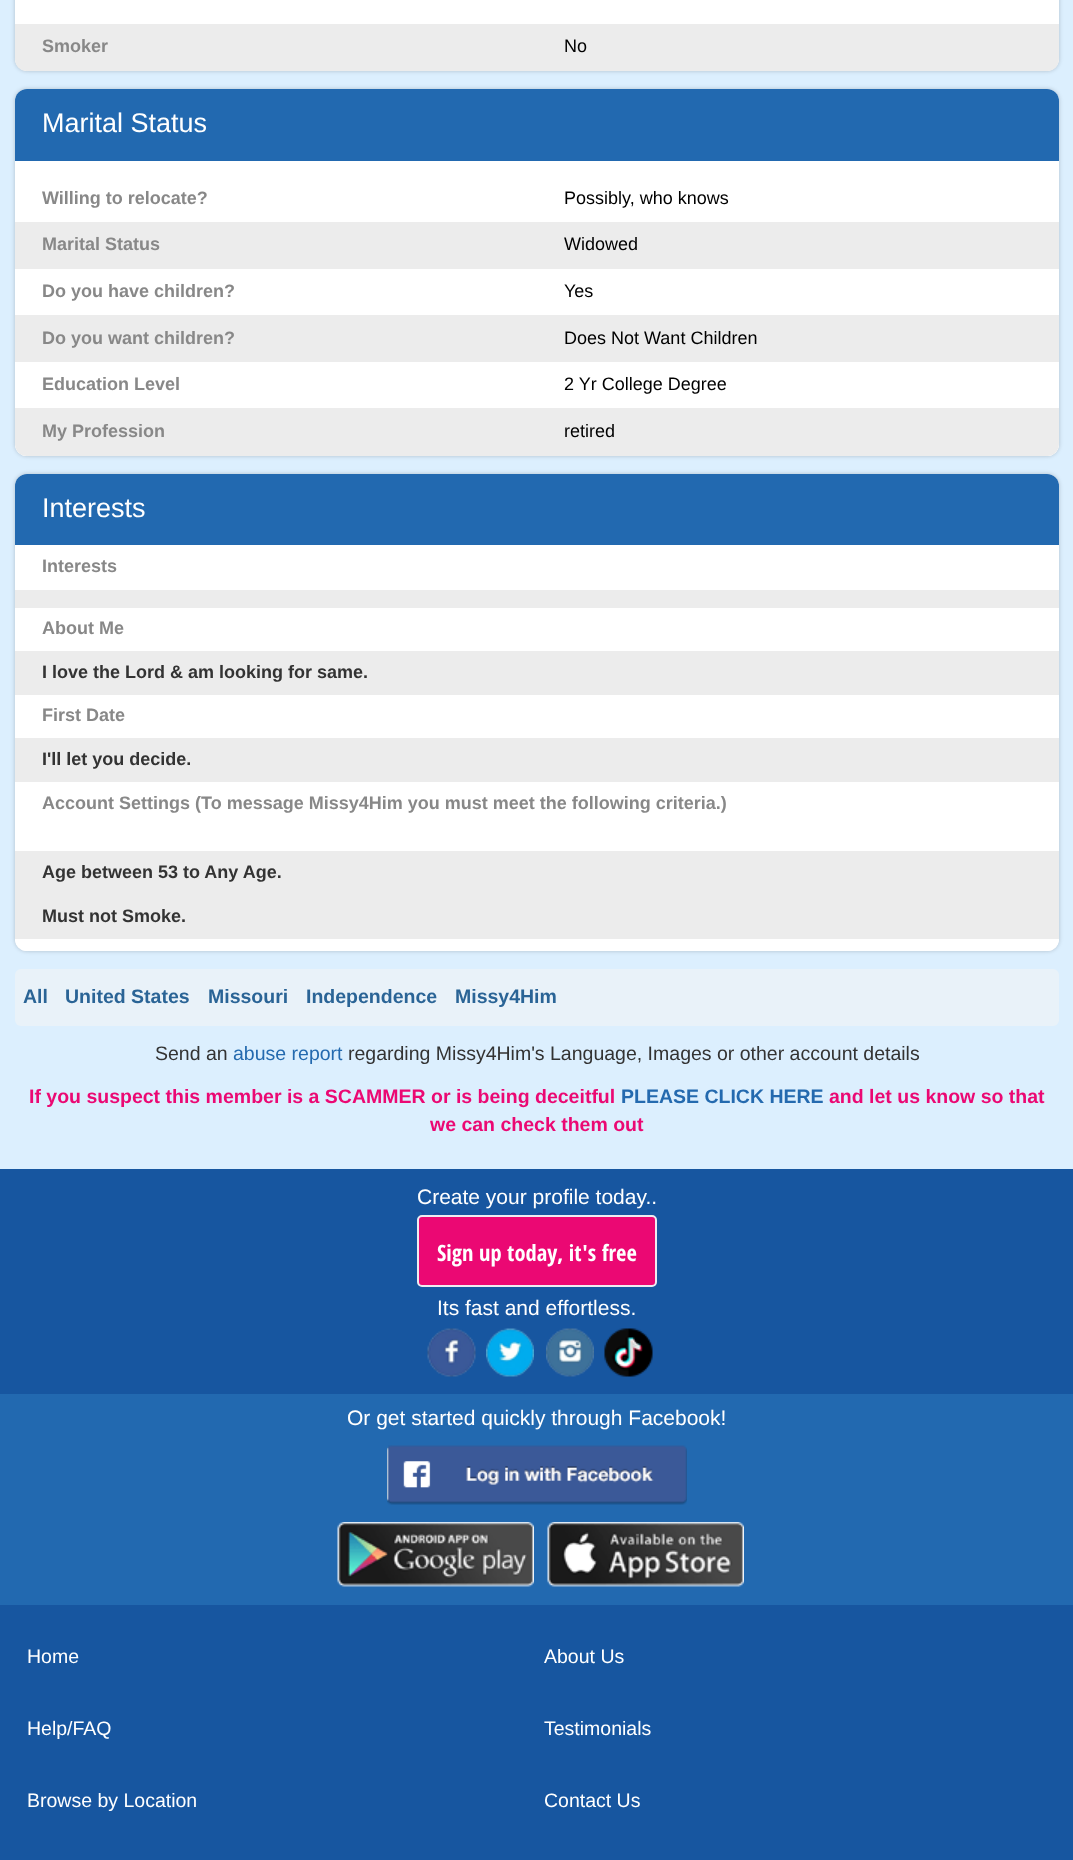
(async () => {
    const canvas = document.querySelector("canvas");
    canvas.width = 1073;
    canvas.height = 1860;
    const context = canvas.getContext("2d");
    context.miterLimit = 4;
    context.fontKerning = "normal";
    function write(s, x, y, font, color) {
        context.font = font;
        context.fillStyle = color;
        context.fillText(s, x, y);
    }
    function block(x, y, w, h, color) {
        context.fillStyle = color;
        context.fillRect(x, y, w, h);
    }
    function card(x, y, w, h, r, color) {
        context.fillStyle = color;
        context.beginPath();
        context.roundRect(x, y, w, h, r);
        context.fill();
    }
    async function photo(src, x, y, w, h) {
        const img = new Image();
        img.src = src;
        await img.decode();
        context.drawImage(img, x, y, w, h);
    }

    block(0, 0, 1073, 1860, "rgb(220, 239, 254)");
    context.fillStyle = "rgba(0, 0, 0, 0.2)";
    context.filter = "blur(2px)";
    context.beginPath();
    context.roundRect(15, -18, 1044, 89, 12);
    context.fill();
    context.filter = "none";
    context.save();
    context.beginPath();
    context.roundRect(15, -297, 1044, 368, 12);
    context.clip();
    context.fillStyle = "rgba(0, 0, 0, 0.05)";
    context.filter = "blur(1px)";
    context.beginPath();
    context.roundRect(15, -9, 1044, 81, 6);
    context.fill();
    context.filter = "none";
    context.restore();
    context.fillStyle = "rgb(255, 255, 255)";
    context.beginPath();
    context.moveTo(21, -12);
    context.lineTo(1053, -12);
    context.bezierCurveTo(1056.5, -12, 1059, -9.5, 1059, -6);
    context.lineTo(1059, 59);
    context.bezierCurveTo(1059, 65.5, 1053.5, 71, 1047, 71);
    context.lineTo(27, 71);
    context.bezierCurveTo(20.5, 71, 15, 65.5, 15, 59);
    context.lineTo(15, -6);
    context.bezierCurveTo(15, -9.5, 17.5, -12, 21, -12);
    context.closePath();
    context.fill();
    context.fillStyle = "rgb(236, 236, 236)";
    context.beginPath();
    context.roundRect(15, 24, 1044, 47, [0, 0, 12, 12]);
    context.fill();
    write("Smoker", 42, 52, "bold 18px Liberation Sans", "rgb(136, 136, 136)");
    write("No", 564, 52, "18px Liberation Sans", "rgb(0, 0, 0)");
    context.fillStyle = "rgba(0, 0, 0, 0.2)";
    context.filter = "blur(2px)";
    context.beginPath();
    context.roundRect(15, 89, 1044, 367, 12);
    context.fill();
    context.filter = "none";
    card(15, 89, 1044, 367, 12, "rgb(255, 255, 255)");
    context.fillStyle = "rgb(34, 105, 176)";
    context.beginPath();
    context.roundRect(15, 89, 1044, 72, [12, 12, 0, 0]);
    context.fill();
    write("Marital Status", 42, 132, "27px Liberation Sans", "rgb(255, 255, 255)");
    context.beginPath();
    context.roundRect(15, 176, 1044, 280, [6, 6, 12, 12]);
    context.fill();
    write("Willing to relocate?", 42, 204, "bold 18px Liberation Sans", "rgb(136, 136, 136)");
    write("Possibly, who knows", 564, 204, "18px Liberation Sans", "rgb(0, 0, 0)");
    block(15, 222, 1044, 47, "rgb(236, 236, 236)");
    write("Marital Status", 42, 250, "bold 18px Liberation Sans", "rgb(136, 136, 136)");
    write("Widowed", 564, 250, "18px Liberation Sans", "rgb(0, 0, 0)");
    write("Do you have children?", 42, 297, "bold 18px Liberation Sans", "rgb(136, 136, 136)");
    write("Yes", 564, 297, "18px Liberation Sans", "rgb(0, 0, 0)");
    block(15, 315, 1044, 47, "rgb(236, 236, 236)");
    write("Do you want children?", 42, 344, "bold 18px Liberation Sans", "rgb(136, 136, 136)");
    write("Does Not Want Children", 564, 344, "18px Liberation Sans", "rgb(0, 0, 0)");
    write("Education Level", 42, 390, "bold 18px Liberation Sans", "rgb(136, 136, 136)");
    write("2 Yr College Degree", 564, 390, "18px Liberation Sans", "rgb(0, 0, 0)");
    context.fillStyle = "rgb(236, 236, 236)";
    context.beginPath();
    context.roundRect(15, 408, 1044, 48, [0, 0, 12, 12]);
    context.fill();
    write("My Profession", 42, 437, "bold 18px Liberation Sans", "rgb(136, 136, 136)");
    write("retired", 564, 437, "18px Liberation Sans", "rgb(0, 0, 0)");
    context.fillStyle = "rgba(0, 0, 0, 0.2)";
    context.filter = "blur(2px)";
    context.beginPath();
    context.roundRect(15, 474, 1044, 477, 12);
    context.fill();
    context.filter = "none";
    card(15, 474, 1044, 477, 12, "rgb(255, 255, 255)");
    context.fillStyle = "rgb(34, 105, 176)";
    context.beginPath();
    context.roundRect(15, 474, 1044, 71, [12, 12, 0, 0]);
    context.fill();
    write("Interests", 42, 517, "27px Liberation Sans", "rgb(255, 255, 255)");
    context.beginPath();
    context.roundRect(15, 545, 1044, 406, [6, 6, 12, 12]);
    context.fill();
    write("Interests", 42, 572, "bold 18px Liberation Sans", "rgb(136, 136, 136)");
    block(15, 590, 1044, 18, "rgb(236, 236, 236)");
    write("About Me", 42, 634, "bold 18px Liberation Sans", "rgb(136, 136, 136)");
    block(15, 651, 1044, 44, "rgb(236, 236, 236)");
    write("I love the Lord & am looking for same.", 42, 678, "bold 18px Liberation Sans", "rgb(51, 51, 51)");
    write("First Date", 42, 721, "bold 18px Liberation Sans", "rgb(136, 136, 136)");
    block(15, 738, 1044, 44, "rgb(236, 236, 236)");
    write("I'll let you decide.", 42, 765, "bold 18px Liberation Sans", "rgb(51, 51, 51)");
    write("Account Settings (To message Missy4Him you must meet the following criteria.)", 42, 809, "bold 18px Liberation Sans", "rgb(136, 136, 136)");
    block(15, 851, 1044, 88, "rgb(236, 236, 236)");
    write("Age between 53 to Any Age.", 42, 878, "bold 18px Liberation Sans", "rgb(51, 51, 51)");
    write("Must not Smoke.", 42, 922, "bold 18px Liberation Sans", "rgb(51, 51, 51)");
    card(15, 969, 1044, 57, 6, "rgb(233, 242, 249)");
    write("All", 23, 1003, "bold 19.5px Liberation Sans", "rgb(42, 100, 150)");
    write("United States", 65, 1003, "bold 19.5px Liberation Sans", "rgb(42, 100, 150)");
    write("Missouri", 208, 1003, "bold 19.5px Liberation Sans", "rgb(42, 100, 150)");
    write("Independence", 306, 1003, "bold 19.5px Liberation Sans", "rgb(42, 100, 150)");
    write("Missy4Him", 455, 1003, "bold 19.5px Liberation Sans", "rgb(42, 100, 150)");
    write("Send an", 155, 1060, "19.5px Liberation Sans", "rgb(51, 51, 51)");
    write("abuse report", 233, 1060, "19.5px Liberation Sans", "rgb(36, 106, 175)");
    write("regarding Missy4Him's Language, Images or other account details", 348, 1060, "19.5px Liberation Sans", "rgb(51, 51, 51)");
    write("If you suspect this member is a SCAMMER or is being deceitful", 29, 1103, "bold 19.5px Liberation Sans", "rgb(235, 8, 115)");
    write("PLEASE CLICK HERE", 621, 1103, "bold 19.5px Liberation Sans", "rgb(36, 106, 175)");
    write("and let us know so that", 829, 1103, "bold 19.5px Liberation Sans", "rgb(235, 8, 115)");
    write("we can check them out", 430, 1131, "bold 19.5px Liberation Sans", "rgb(235, 8, 115)");
    block(0, 1394, 1073, 211, "rgb(34, 105, 176)");
    block(0, 1169, 1073, 225, "rgb(23, 86, 160)");
    write("Create your profile today..", 417, 1204, "21px Liberation Sans", "rgb(255, 255, 255)");
    context.fillStyle = "rgb(235, 8, 115)";
    context.beginPath();
    context.roundRect(418, 1216, 238, 70, 4);
    context.fill();
    context.strokeStyle = "rgb(238, 236, 241)";
    context.lineWidth = 2;
    context.stroke();
    write("Sign up today, it's free", 437, 1261, "bold 22.5px Open Sans Condensed", "rgb(255, 255, 255)");
    write("Its fast and effortless.", 437, 1315, "21px Liberation Sans", "rgb(255, 255, 255)");
    await photo("media/1.png", 427, 1328, 49, 49);
    await photo("media/2.png", 486, 1328, 48, 49);
    await photo("media/3.png", 546, 1328, 48, 49);
    await photo("media/4.png", 604, 1328, 49, 49);
    write("Or get started quickly through Facebook!", 347, 1425, "21px Liberation Sans", "rgb(255, 255, 255)");
    await photo("media/5.png", 387, 1445, 300, 60);
    await photo("media/6.png", 337, 1522, 197, 65);
    await photo("media/7.png", 547, 1522, 197, 65);
    block(0, 1605, 1073, 255, "rgb(23, 86, 160)");
    write("Home", 27, 1663, "19.5px Liberation Sans", "rgb(255, 255, 255)");
    write("About Us", 544, 1663, "19.5px Liberation Sans", "rgb(255, 255, 255)");
    write("Help/FAQ", 27, 1735, "19.5px Liberation Sans", "rgb(255, 255, 255)");
    write("Testimonials", 544, 1735, "19.5px Liberation Sans", "rgb(255, 255, 255)");
    write("Browse by Location", 27, 1807, "19.5px Liberation Sans", "rgb(255, 255, 255)");
    write("Contact Us", 544, 1807, "19.5px Liberation Sans", "rgb(255, 255, 255)");
})();
